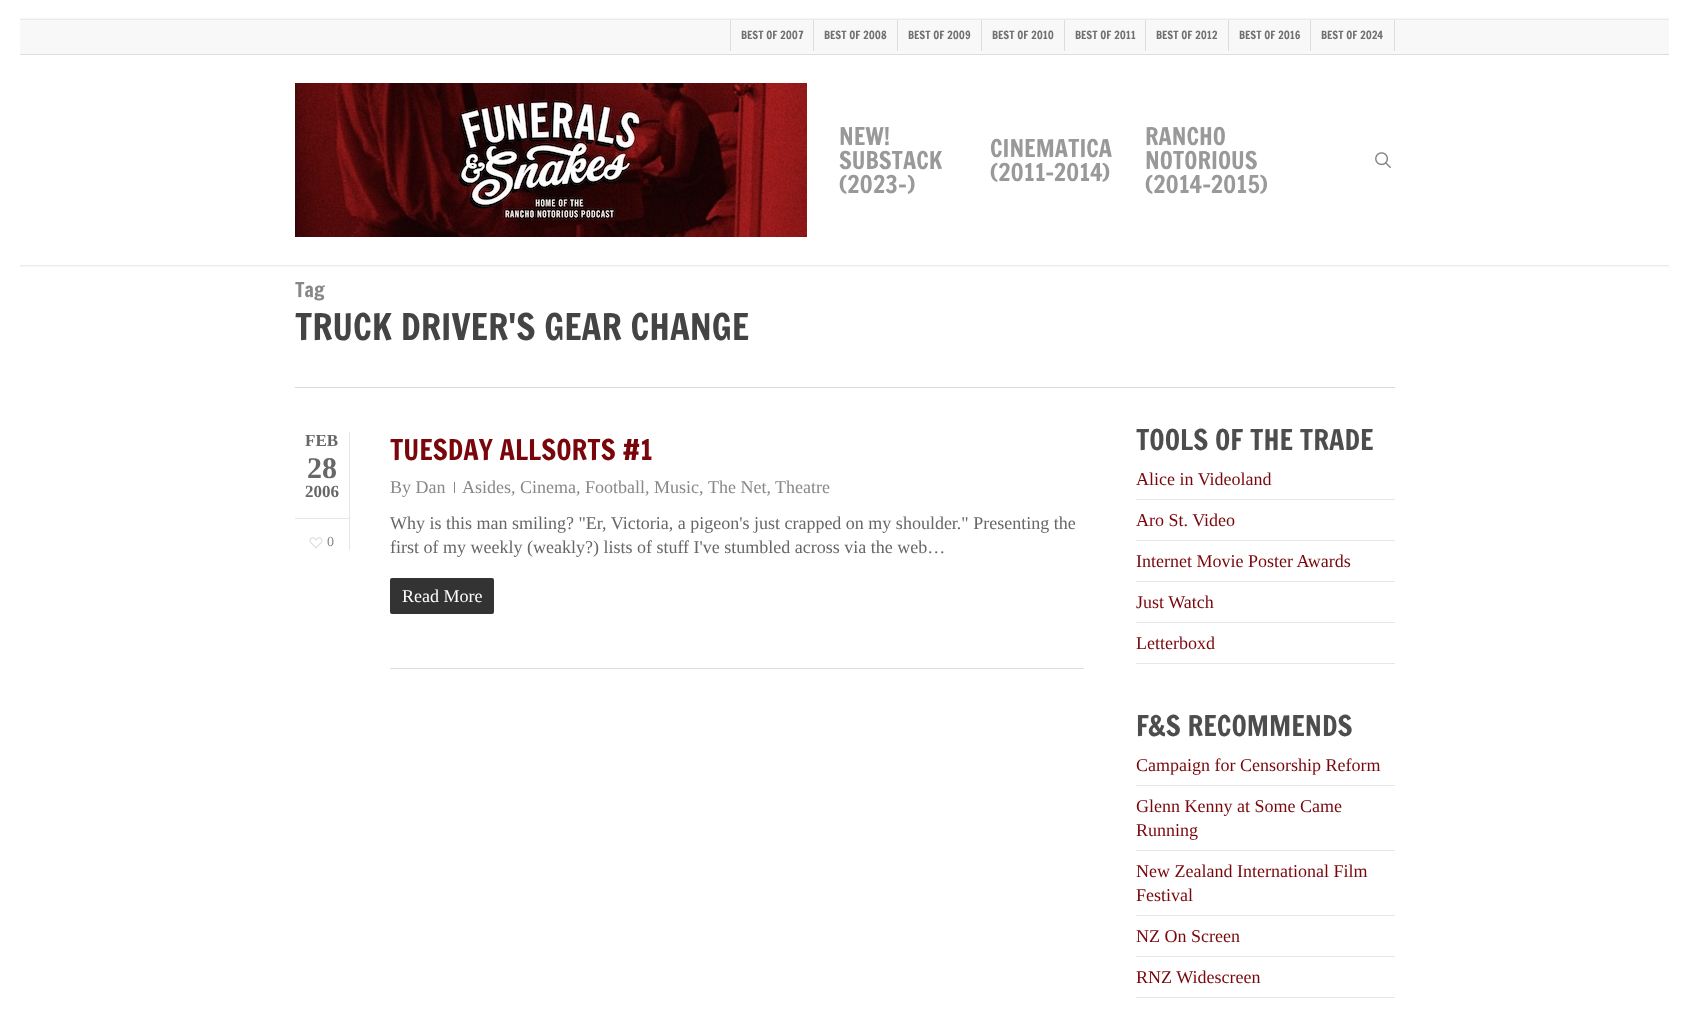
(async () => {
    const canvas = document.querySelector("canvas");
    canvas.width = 1689;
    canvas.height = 1020;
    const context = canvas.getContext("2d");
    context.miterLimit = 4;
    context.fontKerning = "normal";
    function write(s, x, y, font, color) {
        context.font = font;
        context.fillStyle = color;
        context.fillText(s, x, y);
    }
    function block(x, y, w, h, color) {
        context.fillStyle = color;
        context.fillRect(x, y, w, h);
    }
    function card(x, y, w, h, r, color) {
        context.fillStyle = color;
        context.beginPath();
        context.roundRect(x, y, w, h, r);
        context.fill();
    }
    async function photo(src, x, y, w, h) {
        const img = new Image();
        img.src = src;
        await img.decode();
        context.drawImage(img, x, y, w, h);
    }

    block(0, 0, 1689, 1020, "rgb(255, 255, 255)");
    context.save();
    context.beginPath();
    context.moveTo(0, 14);
    context.lineTo(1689, 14);
    context.lineTo(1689, 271);
    context.lineTo(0, 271);
    context.closePath();
    context.moveTo(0, 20);
    context.lineTo(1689, 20);
    context.lineTo(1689, 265);
    context.lineTo(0, 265);
    context.closePath();
    context.clip("evenodd");
    context.fillStyle = "rgba(0, 0, 0, 0.22)";
    context.filter = "blur(1.5px)";
    context.beginPath();
    context.rect(0, 20, 1689, 245);
    context.fill();
    context.filter = "none";
    context.restore();
    block(0, 18, 20, 249, "rgb(255, 255, 255)");
    block(20, 20, 1649, 34, "rgb(248, 248, 248)");
    block(20, 54, 1649, 1, "rgb(221, 221, 221)");
    block(730, 20, 1, 31, "rgb(221, 221, 221)");
    write("BEST OF 2007", 741, 39, "11px Francois One", "rgb(112, 112, 112)");
    block(813, 20, 1, 31, "rgb(221, 221, 221)");
    write("BEST OF 2008", 824, 39, "11px Francois One", "rgb(112, 112, 112)");
    block(897, 20, 1, 31, "rgb(221, 221, 221)");
    write("BEST OF 2009", 908, 39, "11px Francois One", "rgb(112, 112, 112)");
    block(981, 20, 1, 31, "rgb(221, 221, 221)");
    write("BEST OF 2010", 992, 39, "11px Francois One", "rgb(112, 112, 112)");
    block(1064, 20, 1, 31, "rgb(221, 221, 221)");
    write("BEST OF 2011", 1075, 39, "11px Francois One", "rgb(112, 112, 112)");
    block(1145, 20, 1, 31, "rgb(221, 221, 221)");
    write("BEST OF 2012", 1156, 39, "11px Francois One", "rgb(112, 112, 112)");
    block(1228, 20, 1, 31, "rgb(221, 221, 221)");
    write("BEST OF 2016", 1239, 39, "11px Francois One", "rgb(112, 112, 112)");
    block(1394, 20, 1, 31, "rgb(221, 221, 221)");
    block(1310, 20, 1, 31, "rgb(221, 221, 221)");
    write("BEST OF 2024", 1321, 39, "11px Francois One", "rgb(112, 112, 112)");
    await photo("media/1.png", 295, 83, 512, 154);
    write("NEW!", 839, 145, "24px Francois One", "rgb(153, 153, 153)");
    write("SUBSTACK", 839, 169, "24px Francois One", "rgb(153, 153, 153)");
    write("(2023-)", 839, 193, "24px Francois One", "rgb(153, 153, 153)");
    write("CINEMATICA", 990, 157, "24px Francois One", "rgb(153, 153, 153)");
    write("(2011-2014)", 990, 181, "24px Francois One", "rgb(153, 153, 153)");
    write("RANCHO", 1145, 145, "24px Francois One", "rgb(153, 153, 153)");
    write("NOTORIOUS", 1145, 169, "24px Francois One", "rgb(153, 153, 153)");
    write("(2014-2015)", 1145, 193, "24px Francois One", "rgb(153, 153, 153)");
    await photo("media/2.png", 1375, 152, 16, 16);
    block(1669, 18, 20, 249, "rgb(255, 255, 255)");
    block(295, 387, 1100, 1, "rgb(217, 217, 217)");
    write("Tag", 295, 297, "20px Francois One", "rgb(136, 136, 136)");
    write("TRUCK DRIVER'S GEAR CHANGE", 295, 340, "36px Francois One", "rgb(68, 68, 68)");
    block(349, 432, 1, 118, "rgb(230, 230, 230)");
    block(295, 518, 54, 1, "rgb(230, 230, 230)");
    write("FEB", 305, 446, "bold 17px Liberation Serif", "rgb(103, 103, 103)");
    write("28", 307, 478, "bold 30px Liberation Serif", "rgb(103, 103, 103)");
    write("2006", 305, 497, "bold 17px Liberation Serif", "rgb(103, 103, 103)");
    await photo("media/3.png", 309, 537, 14, 12);
    write("0", 327, 546, "14px Liberation Serif", "rgb(136, 136, 136)");
    block(390, 668, 694, 1, "rgb(221, 221, 221)");
    write("TUESDAY ALLSORTS #1", 390, 460, "28px Francois One", "rgb(121, 6, 11)");
    write("By Dan", 390, 493, "18px Liberation Serif", "rgb(136, 136, 136)");
    block(454, 482, 1, 11, "rgb(136, 136, 136)");
    write("Asides, Cinema, Football, Music,", 462, 493, "18px Liberation Serif", "rgb(136, 136, 136)");
    write("The Net,", 708, 493, "18px Liberation Serif", "rgb(136, 136, 136)");
    write("Theatre", 775, 493, "18px Liberation Serif", "rgb(136, 136, 136)");
    write("Why is this man smiling? \"Er, Victoria, a pigeon's just crapped on my shoulder.\" Presenting the", 390, 529, "18px Liberation Serif", "rgb(103, 103, 103)");
    write("first of my weekly (weakly?) lists of stuff I've stumbled across via the web…", 390, 553, "18px Liberation Serif", "rgb(103, 103, 103)");
    card(390, 578, 104, 36, 2, "rgb(51, 51, 51)");
    write("Read More", 402, 602, "18px Liberation Serif", "rgb(255, 255, 255)");
    write("TOOLS OF THE TRADE", 1136, 450, "28px Francois One", "rgb(77, 77, 77)");
    block(1136, 499, 259, 1, "rgb(230, 230, 230)");
    write("Alice in Videoland", 1136, 485, "18px Liberation Serif", "rgb(121, 6, 11)");
    block(1136, 540, 259, 1, "rgb(230, 230, 230)");
    write("Aro St. Video", 1136, 526, "18px Liberation Serif", "rgb(121, 6, 11)");
    block(1136, 581, 259, 1, "rgb(230, 230, 230)");
    write("Internet Movie Poster Awards", 1136, 567, "18px Liberation Serif", "rgb(121, 6, 11)");
    block(1136, 622, 259, 1, "rgb(230, 230, 230)");
    write("Just Watch", 1136, 608, "18px Liberation Serif", "rgb(121, 6, 11)");
    block(1136, 663, 259, 1, "rgb(230, 230, 230)");
    write("Letterboxd", 1136, 649, "18px Liberation Serif", "rgb(121, 6, 11)");
    write("F&S RECOMMENDS", 1136, 736, "28px Francois One", "rgb(77, 77, 77)");
    block(1136, 785, 259, 1, "rgb(230, 230, 230)");
    write("Campaign for Censorship Reform", 1136, 771, "18px Liberation Serif", "rgb(121, 6, 11)");
    block(1136, 850, 259, 1, "rgb(230, 230, 230)");
    write("Glenn Kenny at Some Came", 1136, 812, "18px Liberation Serif", "rgb(121, 6, 11)");
    write("Running", 1136, 836, "18px Liberation Serif", "rgb(121, 6, 11)");
    block(1136, 915, 259, 1, "rgb(230, 230, 230)");
    write("New Zealand International Film", 1136, 877, "18px Liberation Serif", "rgb(121, 6, 11)");
    write("Festival", 1136, 901, "18px Liberation Serif", "rgb(121, 6, 11)");
    block(1136, 956, 259, 1, "rgb(230, 230, 230)");
    write("NZ On Screen", 1136, 942, "18px Liberation Serif", "rgb(121, 6, 11)");
    block(1136, 997, 259, 1, "rgb(230, 230, 230)");
    write("RNZ Widescreen", 1136, 983, "18px Liberation Serif", "rgb(121, 6, 11)");
})();
